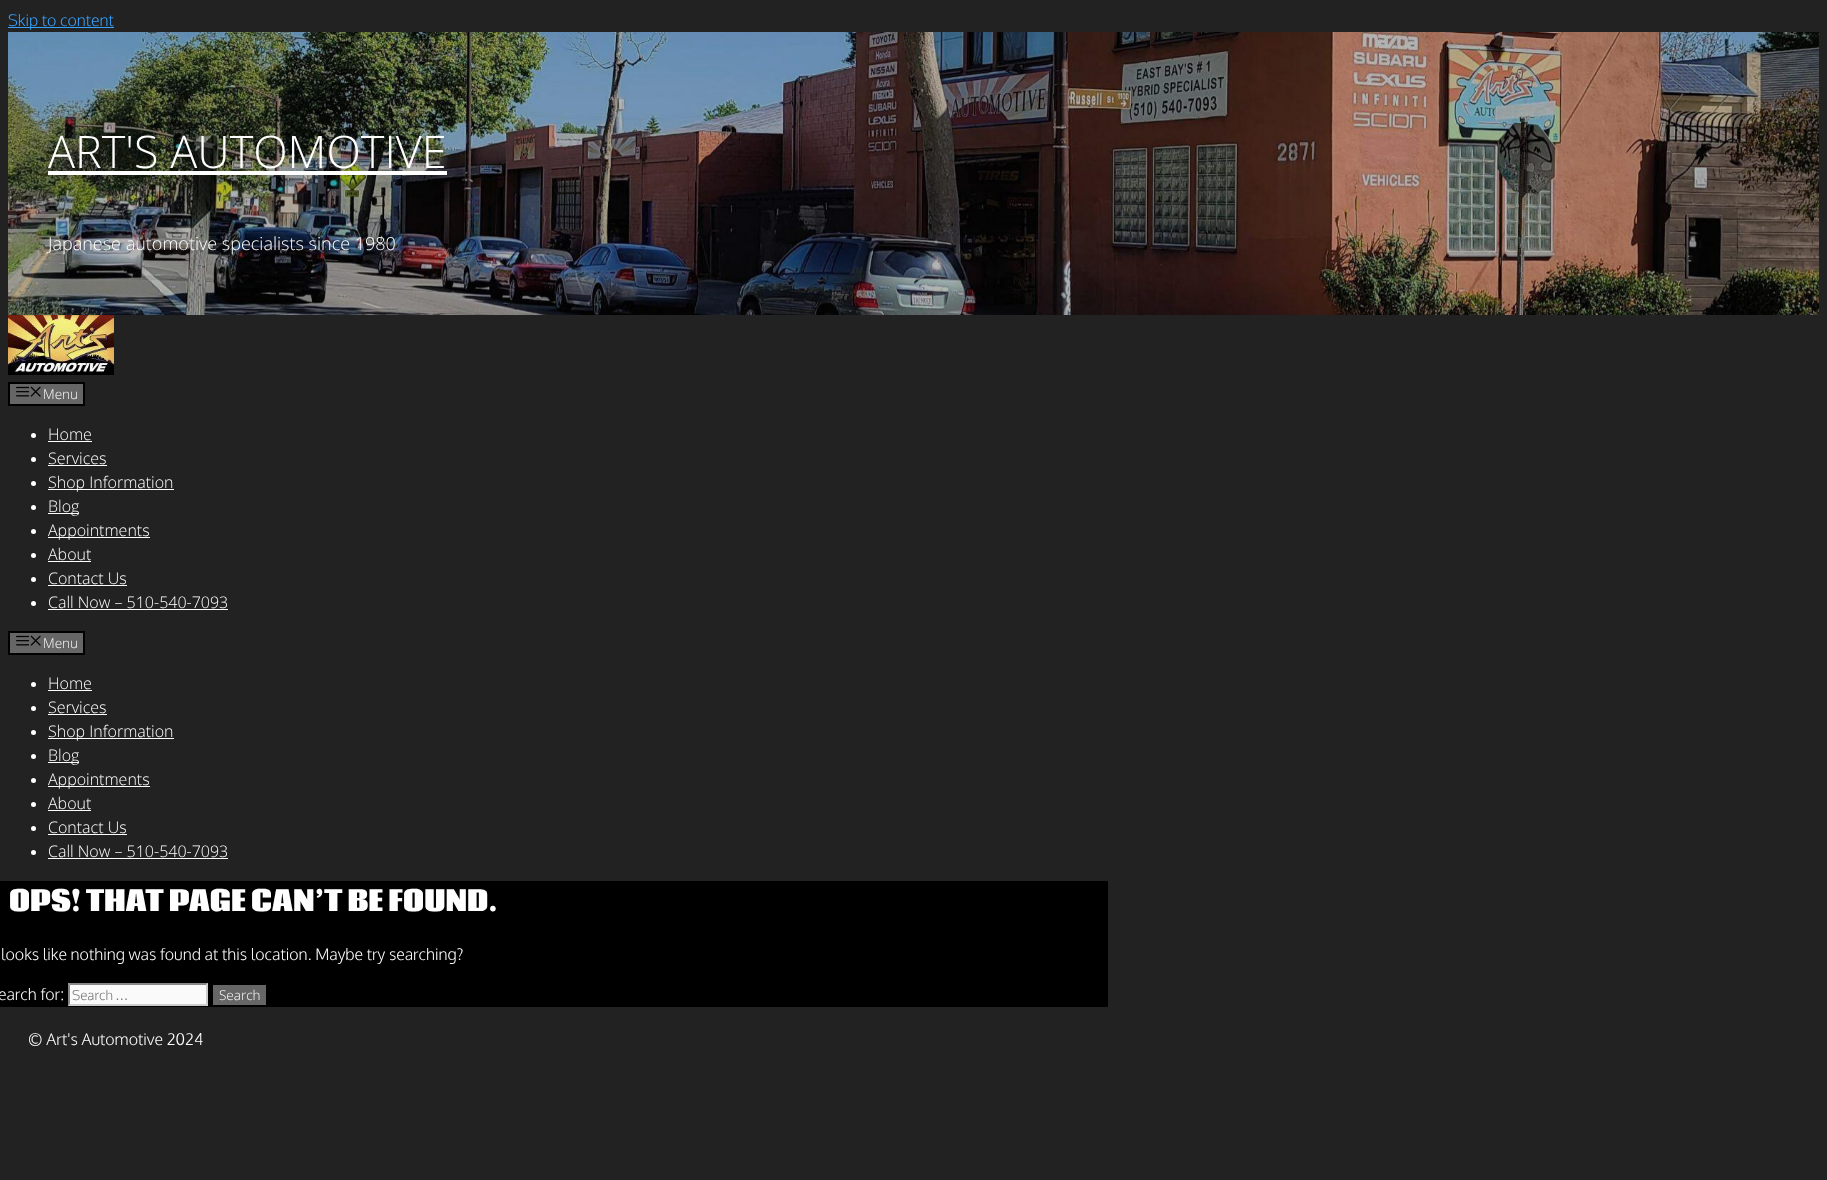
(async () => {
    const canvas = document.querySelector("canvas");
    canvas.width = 1827;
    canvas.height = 1180;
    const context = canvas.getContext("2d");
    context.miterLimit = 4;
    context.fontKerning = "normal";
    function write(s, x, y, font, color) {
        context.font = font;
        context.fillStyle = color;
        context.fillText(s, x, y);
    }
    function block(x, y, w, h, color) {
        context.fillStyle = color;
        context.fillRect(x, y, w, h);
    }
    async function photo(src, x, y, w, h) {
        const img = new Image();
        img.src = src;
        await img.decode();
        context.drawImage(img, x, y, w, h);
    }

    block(0, 0, 1827, 1180, "rgb(34, 34, 34)");
    block(8, 27, 106, 1, "rgb(55, 162, 255)");
    write("Skip to content", 8, 26, "300 16px Oxygen", "rgb(55, 162, 255)");
    await photo("media/1.png", 8, 32, 1811, 283);
    write("ART'S AUTOMOTIVE", 48, 168, "300 45px Open Sans", "rgb(255, 255, 255)");
    block(48, 171, 399, 4, "rgb(255, 255, 255)");
    write("Japanese automotive specialists since 1980", 48, 250, "300 18px Open Sans", "rgb(255, 255, 255)");
    await photo("media/2.png", 8, 315, 106, 60);
    context.fillStyle = "rgb(102, 102, 102)";
    context.beginPath();
    context.rect(9, 383, 75, 22);
    context.fill();
    context.strokeStyle = "rgb(0, 0, 0)";
    context.lineWidth = 2;
    context.stroke();
    await photo("media/3.png", 16, 386, 13, 11);
    await photo("media/4.png", 30, 386, 11, 11);
    write("Menu", 43, 399, "300 13.5px Open Sans", "rgb(255, 255, 255)");
    context.beginPath();
    context.arc(33.5, 435.5, 2.5, 0, Math.PI * 2);
    context.fill();
    write("Home", 48, 440, "300 16px Open Sans", "rgb(255, 255, 255)");
    block(48, 441, 44, 1, "rgb(255, 255, 255)");
    context.beginPath();
    context.arc(33.5, 459.5, 2.5, 0, Math.PI * 2);
    context.fill();
    write("Services", 48, 464, "300 16px Open Sans", "rgb(255, 255, 255)");
    block(48, 465, 59, 1, "rgb(255, 255, 255)");
    context.beginPath();
    context.arc(33.5, 483.5, 2.5, 0, Math.PI * 2);
    context.fill();
    block(48, 489, 126, 1, "rgb(255, 255, 255)");
    write("Shop Information", 48, 488, "300 16px Open Sans", "rgb(255, 255, 255)");
    context.beginPath();
    context.arc(33.5, 507.5, 2.5, 0, Math.PI * 2);
    context.fill();
    block(48, 513, 31, 1, "rgb(255, 255, 255)");
    write("Blog", 48, 512, "300 16px Open Sans", "rgb(255, 255, 255)");
    context.beginPath();
    context.arc(33.5, 531.5, 2.5, 0, Math.PI * 2);
    context.fill();
    block(48, 537, 102, 1, "rgb(255, 255, 255)");
    write("Appointments", 48, 536, "300 16px Open Sans", "rgb(255, 255, 255)");
    context.beginPath();
    context.arc(33.5, 555.5, 2.5, 0, Math.PI * 2);
    context.fill();
    write("About", 48, 560, "300 16px Open Sans", "rgb(255, 255, 255)");
    block(48, 561, 43, 1, "rgb(255, 255, 255)");
    context.beginPath();
    context.arc(33.5, 579.5, 2.5, 0, Math.PI * 2);
    context.fill();
    write("Contact Us", 48, 584, "300 16px Open Sans", "rgb(255, 255, 255)");
    block(48, 585, 79, 1, "rgb(255, 255, 255)");
    context.beginPath();
    context.arc(33.5, 603.5, 2.5, 0, Math.PI * 2);
    context.fill();
    write("Call Now – 510-540-7093", 48, 608, "300 16px Open Sans", "rgb(255, 255, 255)");
    block(48, 609, 180, 1, "rgb(255, 255, 255)");
    context.fillStyle = "rgb(102, 102, 102)";
    context.beginPath();
    context.rect(9, 632, 75, 22);
    context.fill();
    context.stroke();
    await photo("media/3.png", 16, 635, 13, 11);
    await photo("media/4.png", 30, 635, 11, 11);
    write("Menu", 43, 648, "300 13.5px Open Sans", "rgb(255, 255, 255)");
    context.beginPath();
    context.arc(33.5, 684.5, 2.5, 0, Math.PI * 2);
    context.fill();
    write("Home", 48, 689, "300 16px Open Sans", "rgb(255, 255, 255)");
    block(48, 690, 44, 1, "rgb(255, 255, 255)");
    context.beginPath();
    context.arc(33.5, 708.5, 2.5, 0, Math.PI * 2);
    context.fill();
    write("Services", 48, 713, "300 16px Open Sans", "rgb(255, 255, 255)");
    block(48, 714, 59, 1, "rgb(255, 255, 255)");
    context.beginPath();
    context.arc(33.5, 732.5, 2.5, 0, Math.PI * 2);
    context.fill();
    block(48, 738, 126, 1, "rgb(255, 255, 255)");
    write("Shop Information", 48, 737, "300 16px Open Sans", "rgb(255, 255, 255)");
    context.beginPath();
    context.arc(33.5, 756.5, 2.5, 0, Math.PI * 2);
    context.fill();
    block(48, 762, 31, 1, "rgb(255, 255, 255)");
    write("Blog", 48, 761, "300 16px Open Sans", "rgb(255, 255, 255)");
    context.beginPath();
    context.arc(33.5, 780.5, 2.5, 0, Math.PI * 2);
    context.fill();
    block(48, 786, 102, 1, "rgb(255, 255, 255)");
    write("Appointments", 48, 785, "300 16px Open Sans", "rgb(255, 255, 255)");
    context.beginPath();
    context.arc(33.5, 804.5, 2.5, 0, Math.PI * 2);
    context.fill();
    write("About", 48, 809, "300 16px Open Sans", "rgb(255, 255, 255)");
    block(48, 810, 43, 1, "rgb(255, 255, 255)");
    context.beginPath();
    context.arc(33.5, 828.5, 2.5, 0, Math.PI * 2);
    context.fill();
    write("Contact Us", 48, 833, "300 16px Open Sans", "rgb(255, 255, 255)");
    block(48, 834, 79, 1, "rgb(255, 255, 255)");
    context.beginPath();
    context.arc(33.5, 852.5, 2.5, 0, Math.PI * 2);
    context.fill();
    write("Call Now – 510-540-7093", 48, 857, "300 16px Open Sans", "rgb(255, 255, 255)");
    block(48, 858, 180, 1, "rgb(255, 255, 255)");
    block(0, 881, 1108, 126, "rgb(0, 0, 0)");
    write("OPS! THAT PAGE CAN’T BE FOUND.", 9, 911, "800 28px Coda", "rgb(255, 255, 255)");
    write("looks like nothing was found at this location. Maybe try searching?", 1, 960, "300 16px Oxygen", "rgb(255, 255, 255)");
    write("earch for:", -2, 1000, "300 16px Oxygen", "rgb(255, 255, 255)");
    block(68, 983, 140, 23, "rgb(250, 250, 250)");
    context.fillStyle = "rgb(136, 136, 136)";
    context.beginPath();
    context.moveTo(68, 983);
    context.lineTo(208, 983);
    context.lineTo(206, 985);
    context.lineTo(70, 985);
    context.closePath();
    context.fill();
    context.fillStyle = "rgb(204, 204, 204)";
    context.beginPath();
    context.moveTo(208, 983);
    context.lineTo(208, 1006);
    context.lineTo(206, 1004);
    context.lineTo(206, 985);
    context.closePath();
    context.fill();
    context.beginPath();
    context.moveTo(208, 1006);
    context.lineTo(68, 1006);
    context.lineTo(70, 1004);
    context.lineTo(206, 1004);
    context.closePath();
    context.fill();
    context.fillStyle = "rgb(136, 136, 136)";
    context.beginPath();
    context.moveTo(68, 1006);
    context.lineTo(68, 983);
    context.lineTo(70, 985);
    context.lineTo(70, 1004);
    context.closePath();
    context.fill();
    write("Search", 72, 1000, "300 13.5px Oxygen", "rgb(117, 117, 117)");
    write("…", 115, 1000, "13.5px Liberation Sans", "rgb(117, 117, 117)");
    block(213, 985, 53, 20, "rgb(102, 102, 102)");
    write("Search", 219, 1000, "300 13.5px Open Sans", "rgb(255, 255, 255)");
    write("© Art's Automotive 2024", 28, 1045, "300 16px Oxygen", "rgb(255, 255, 255)");
})();
